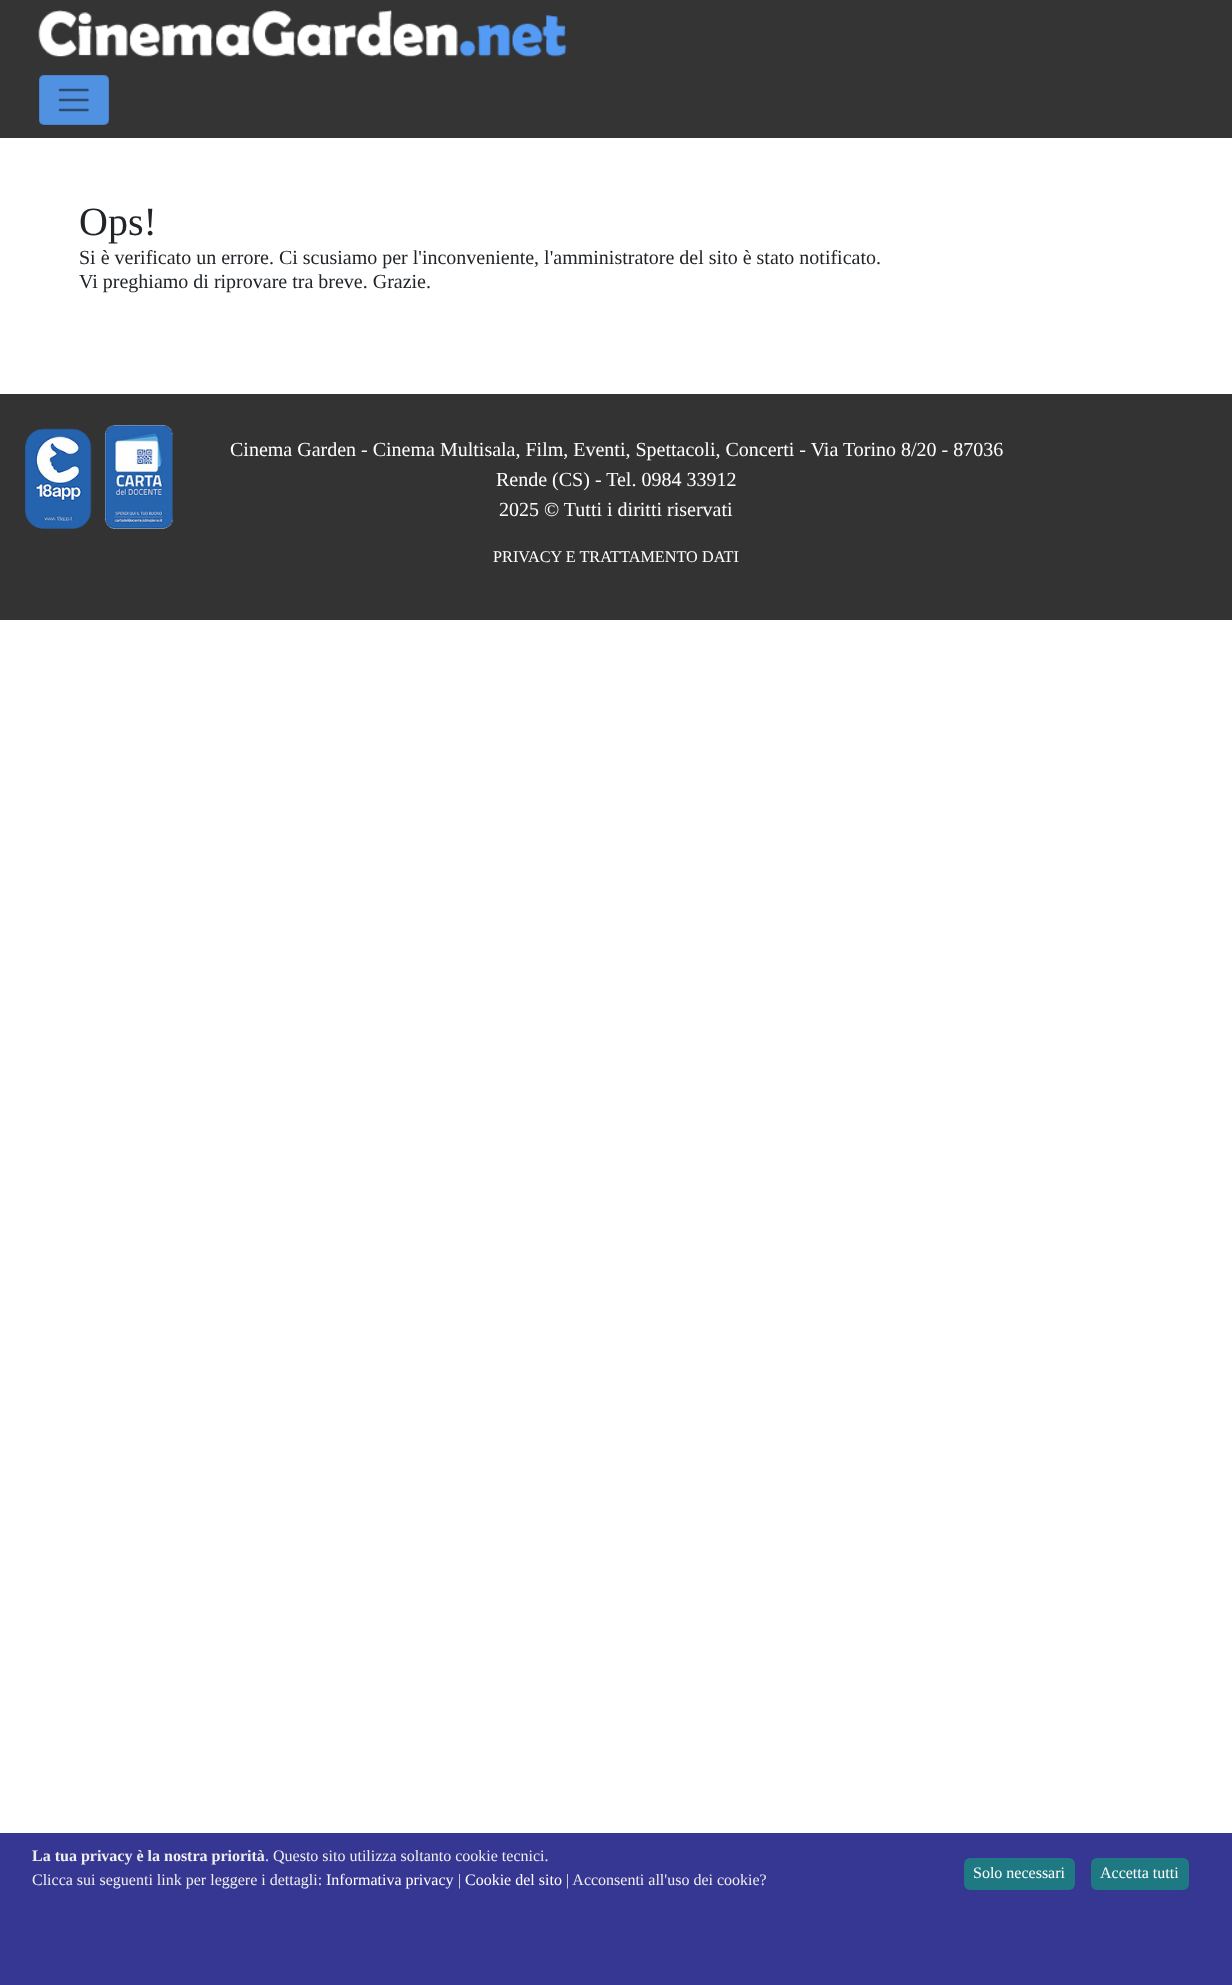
(async () => {
    const canvas = document.querySelector("canvas");
    canvas.width = 1232;
    canvas.height = 1985;
    const context = canvas.getContext("2d");
    context.miterLimit = 4;
    context.fontKerning = "normal";
    function write(s, x, y, font, color) {
        context.font = font;
        context.fillStyle = color;
        context.fillText(s, x, y);
    }
    function block(x, y, w, h, color) {
        context.fillStyle = color;
        context.fillRect(x, y, w, h);
    }
    function card(x, y, w, h, r, color) {
        context.fillStyle = color;
        context.beginPath();
        context.roundRect(x, y, w, h, r);
        context.fill();
    }
    async function photo(src, x, y, w, h) {
        const img = new Image();
        img.src = src;
        await img.decode();
        context.drawImage(img, x, y, w, h);
    }

    block(0, 0, 1232, 1985, "rgb(255, 255, 255)");
    block(0, 0, 1232, 138, "rgb(52, 52, 52)");
    await photo("media/1.png", 38, 10, 529, 47);
    card(39, 75, 70, 50, 5, "rgb(80, 145, 225)");
    context.beginPath();
    context.roundRect(39.5, 75.5, 69, 49, 4.5);
    context.strokeStyle = "rgba(5, 5, 5, 0.1)";
    context.stroke();
    context.beginPath();
    context.moveTo(60, 90);
    context.lineTo(87.5, 90);
    context.moveTo(60, 100);
    context.lineTo(87.5, 100);
    context.moveTo(60, 110);
    context.lineTo(87.5, 110);
    context.strokeStyle = "rgb(43, 75, 115)";
    context.lineWidth = 2.5;
    context.lineCap = "round";
    context.stroke();
    write("Ops!", 79, 235, "40px Liberation Serif", "rgb(33, 37, 41)");
    write("Si è verificato un errore. Ci scusiamo per l'inconveniente, l'amministratore del sito è stato notificato.", 79, 264, "20px Liberation Serif", "rgb(33, 37, 41)");
    write("Vi preghiamo di riprovare tra breve. Grazie.", 79, 288, "20px Liberation Serif", "rgb(33, 37, 41)");
    block(0, 394, 1232, 226, "rgb(51, 51, 51)");
    await photo("media/2.png", 25, 428, 67, 101);
    await photo("media/3.png", 105, 425, 68, 104);
    write("Cinema Garden - Cinema Multisala, Film, Eventi, Spettacoli, Concerti - Via Torino 8/20 - 87036", 230, 456, "20px Liberation Serif", "rgb(255, 255, 255)");
    write("Rende (CS) - Tel. 0984 33912", 496, 486, "20px Liberation Serif", "rgb(255, 255, 255)");
    write("2025 © Tutti i diritti riservati", 499, 516, "20px Liberation Serif", "rgb(255, 255, 255)");
    write("PRIVACY E TRATTAMENTO DATI", 493, 562, "16.25px Liberation Serif", "rgb(255, 255, 255)");
    block(0, 1833, 1232, 152, "rgb(54, 54, 147)");
    write("La tua privacy è la nostra priorità", 32, 1861, "bold 16px Liberation Serif", "rgb(238, 238, 238)");
    write(". Questo sito utilizza soltanto cookie tecnici.", 265, 1861, "16px Liberation Serif", "rgb(238, 238, 238)");
    write("Clicca sui seguenti link per leggere i dettagli:", 32, 1885, "16px Liberation Serif", "rgb(238, 238, 238)");
    write("Informativa privacy", 326, 1885, "16px Liberation Serif", "rgb(255, 255, 255)");
    write("|", 458, 1885, "16px Liberation Serif", "rgb(238, 238, 238)");
    write("Cookie del sito", 465, 1885, "16px Liberation Serif", "rgb(255, 255, 255)");
    write("| Acconsenti all'uso dei cookie?", 566, 1885, "16px Liberation Serif", "rgb(238, 238, 238)");
    card(964, 1858, 111, 32, 6, "rgb(31, 121, 130)");
    write("Solo necessari", 973, 1878, "16px Liberation Serif", "rgb(255, 255, 255)");
    card(1091, 1858, 98, 32, 6, "rgb(31, 121, 130)");
    write("Accetta tutti", 1100, 1878, "16px Liberation Serif", "rgb(255, 255, 255)");
})();
